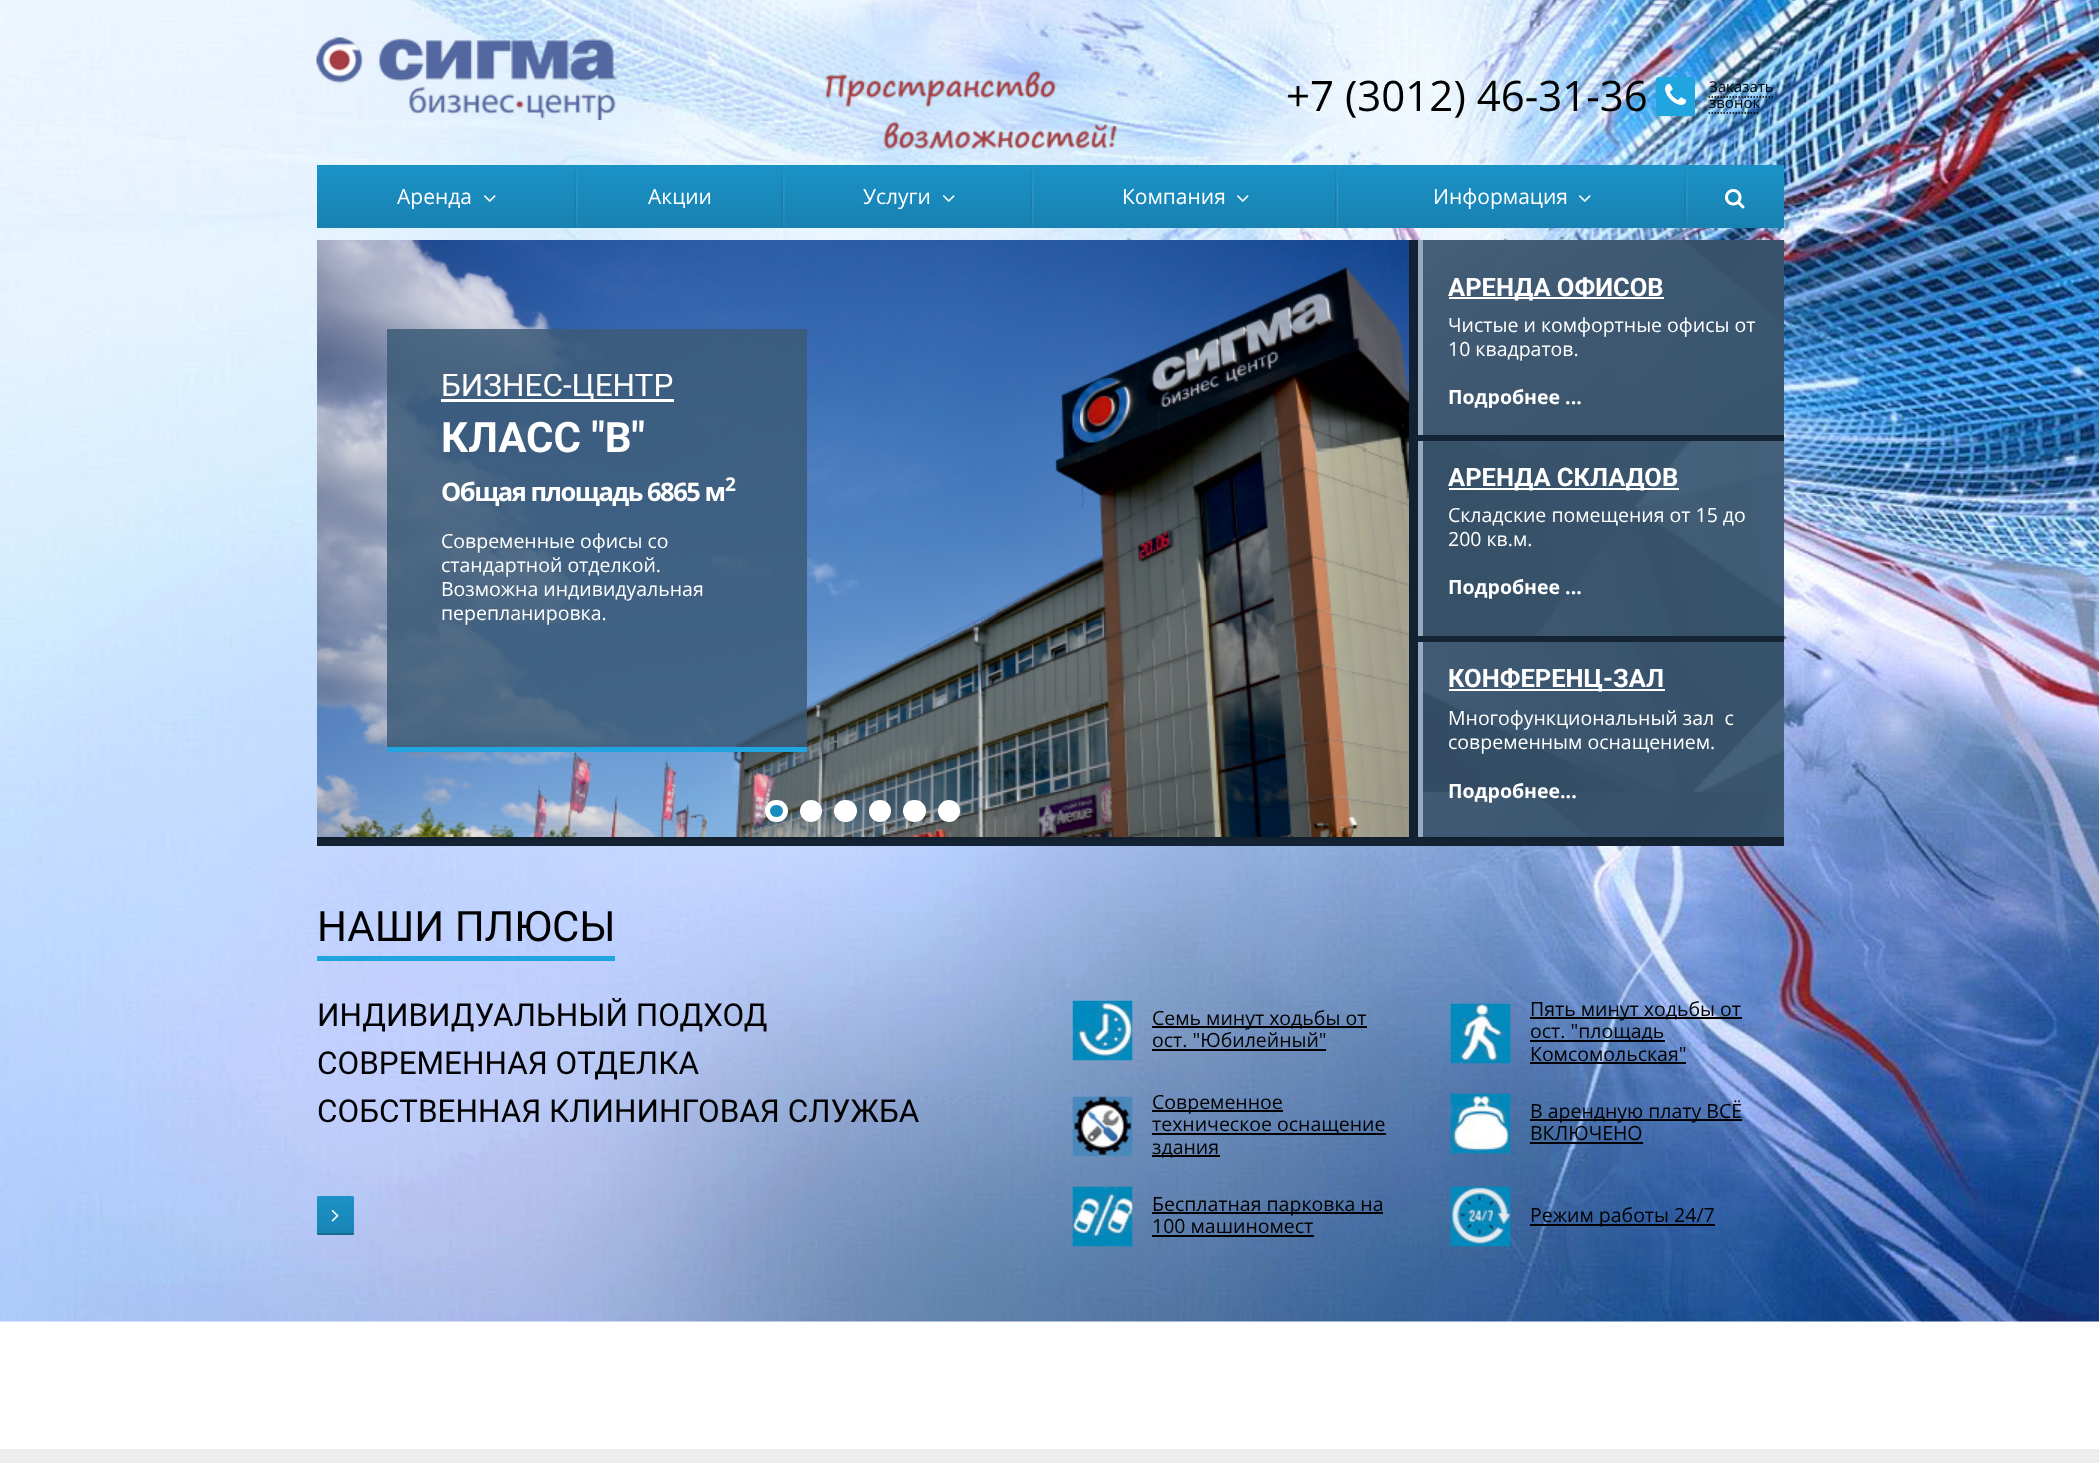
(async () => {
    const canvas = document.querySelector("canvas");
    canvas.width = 2099;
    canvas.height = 1463;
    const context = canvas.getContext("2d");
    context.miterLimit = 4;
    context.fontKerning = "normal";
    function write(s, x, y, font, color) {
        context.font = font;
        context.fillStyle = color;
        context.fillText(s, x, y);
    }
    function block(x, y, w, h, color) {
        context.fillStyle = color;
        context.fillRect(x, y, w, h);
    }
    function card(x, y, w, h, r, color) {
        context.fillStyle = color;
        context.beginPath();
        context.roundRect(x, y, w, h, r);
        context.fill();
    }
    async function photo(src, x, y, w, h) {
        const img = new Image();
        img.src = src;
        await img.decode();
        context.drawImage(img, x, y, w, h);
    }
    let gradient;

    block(0, 0, 2099, 1463, "rgb(255, 255, 255)");
    await photo("media/1.png", 0, 0, 2099, 1322);
    await photo("media/2.png", 316, 37, 301, 83);
    await photo("media/3.png", 825, 70, 292, 81);
    write("+7 (3012) 46-31-36", 1286, 111, "42px Open Sans", "rgb(0, 0, 0)");
    card(1656, 77, 39, 39, 3, "rgb(32, 165, 225)");
    await photo("media/4.png", 1665, 83, 22, 22);
    write("Заказать", 1709, 92, "15px Open Sans", "rgb(0, 0, 0)");
    write("звонок", 1709, 108, "15px Open Sans", "rgb(0, 0, 0)");
    context.beginPath();
    context.moveTo(1708.5, 97);
    context.lineTo(1773, 97);
    context.strokeStyle = "rgb(0, 0, 0)";
    context.lineWidth = 1.5;
    context.setLineDash([1.5, 1.5]);
    context.stroke();
    context.beginPath();
    context.moveTo(1708.5, 113);
    context.lineTo(1759.5, 113);
    context.stroke();
    gradient = context.createLinearGradient(447, 165, 447, 228);
    gradient.addColorStop(0, "rgb(27, 146, 199)");
    gradient.addColorStop(1, "rgb(24, 129, 177)");
    context.fillStyle = gradient;
    context.fillRect(317, 165, 261, 63);
    write("Аренда", 397, 204, "21px Open Sans", "rgb(255, 255, 255)");
    await photo("media/5.png", 484, 195, 12, 7);
    await photo("media/6.png", 574, 165, 4, 63);
    gradient = context.createLinearGradient(681, 165, 681, 228);
    gradient.addColorStop(0, "rgb(27, 146, 199)");
    gradient.addColorStop(1, "rgb(24, 129, 177)");
    context.fillStyle = gradient;
    context.fillRect(578, 165, 207, 63);
    write("Акции", 648, 204, "21px Open Sans", "rgb(255, 255, 255)");
    await photo("media/6.png", 781, 165, 4, 63);
    gradient = context.createLinearGradient(909, 165, 909, 228);
    gradient.addColorStop(0, "rgb(27, 146, 199)");
    gradient.addColorStop(1, "rgb(24, 129, 177)");
    context.fillStyle = gradient;
    context.fillRect(785, 165, 249, 63);
    write("Услуги", 863, 204, "21px Open Sans", "rgb(255, 255, 255)");
    await photo("media/5.png", 943, 195, 12, 7);
    await photo("media/6.png", 1030, 165, 4, 63);
    gradient = context.createLinearGradient(1186, 165, 1186, 228);
    gradient.addColorStop(0, "rgb(27, 146, 199)");
    gradient.addColorStop(1, "rgb(24, 129, 177)");
    context.fillStyle = gradient;
    context.fillRect(1034, 165, 304, 63);
    write("Компания", 1122, 204, "21px Open Sans", "rgb(255, 255, 255)");
    await photo("media/5.png", 1237, 195, 12, 7);
    await photo("media/7.png", 1335, 165, 3, 63);
    gradient = context.createLinearGradient(1513, 165, 1513, 228);
    gradient.addColorStop(0, "rgb(27, 146, 199)");
    gradient.addColorStop(1, "rgb(24, 129, 177)");
    context.fillStyle = gradient;
    context.fillRect(1338, 165, 350, 63);
    write("Информация", 1433, 204, "21px Open Sans", "rgb(255, 255, 255)");
    await photo("media/5.png", 1579, 195, 12, 7);
    await photo("media/6.png", 1684, 165, 4, 63);
    gradient = context.createLinearGradient(1736, 165, 1736, 228);
    gradient.addColorStop(0, "rgb(27, 146, 199)");
    gradient.addColorStop(1, "rgb(24, 129, 177)");
    context.fillStyle = gradient;
    context.fillRect(1688, 165, 96, 63);
    await photo("media/8.png", 1725, 189, 20, 20);
    block(317, 240, 1467, 606, "rgb(21, 36, 53)");
    context.save();
    context.beginPath();
    context.rect(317, 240, 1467, 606);
    context.clip();
    context.fillStyle = "rgba(0, 0, 0, 0.2)";
    context.filter = "blur(3px)";
    context.beginPath();
    context.rect(317, 242, 1092, 597);
    context.fill();
    context.filter = "none";
    context.restore();
    await photo("media/9.png", 317, 240, 1092, 597);
    block(387, 329, 420, 418, "rgba(60, 91, 119, 0.85)");
    block(387, 747, 420, 5, "rgb(32, 165, 225)");
    block(441, 399, 233, 3, "rgb(255, 255, 255)");
    context.save();
    context.beginPath();
    context.rect(441, 374, 312, 325);
    context.clip();
    write("БИЗНЕС-ЦЕНТР", 441, 396, "31.5px Roboto", "rgb(255, 255, 255)");
    context.restore();
    write("КЛАСС \"В\"", 441, 452, "bold 42px Roboto", "rgb(255, 255, 255)");
    context.letterSpacing = "-1.5px";
    write("Общая площадь 6865 м", 441, 501, "bold 25.5px Open Sans", "rgb(255, 255, 255)");
    write("2", 725, 491, "bold 19px Open Sans", "rgb(255, 255, 255)");
    context.letterSpacing = "0px";
    write("Современные офисы со", 441, 548, "19.5px Open Sans", "rgb(255, 255, 255)");
    write("стандартной отделкой.", 441, 572, "19.5px Open Sans", "rgb(255, 255, 255)");
    write("Возможна индивидуальная", 441, 596, "19.5px Open Sans", "rgb(255, 255, 255)");
    write("перепланировка.", 441, 620, "19.5px Open Sans", "rgb(255, 255, 255)");
    context.fillStyle = "rgb(26, 139, 190)";
    context.beginPath();
    context.roundRect(767.5, 802.5, 18, 17, 8.5);
    context.fill();
    context.strokeStyle = "rgb(255, 255, 255)";
    context.lineWidth = 5;
    context.setLineDash([]);
    context.stroke();
    context.fillStyle = "rgb(255, 255, 255)";
    context.beginPath();
    context.arc(811, 811, 8.5, 0, Math.PI * 2);
    context.fill();
    context.stroke();
    context.beginPath();
    context.roundRect(836.5, 802.5, 18, 17, 8.5);
    context.fill();
    context.stroke();
    context.beginPath();
    context.arc(880, 811, 8.5, 0, Math.PI * 2);
    context.fill();
    context.stroke();
    context.beginPath();
    context.roundRect(905.5, 802.5, 18, 17, 8.5);
    context.fill();
    context.stroke();
    context.beginPath();
    context.arc(949, 811, 8.5, 0, Math.PI * 2);
    context.fill();
    context.stroke();
    context.save();
    context.beginPath();
    context.rect(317, 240, 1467, 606);
    context.clip();
    context.fillStyle = "rgba(0, 0, 0, 0.2)";
    context.filter = "blur(3px)";
    context.beginPath();
    context.rect(1418, 242, 366, 597);
    context.fill();
    context.filter = "none";
    context.restore();
    block(1418, 435, 366, 207, "rgb(21, 36, 53)");
    block(1423, 240, 361, 195, "rgb(60, 91, 119)");
    await photo("media/10.png", 1423, 240, 361, 195);
    block(1418, 240, 5, 195, "rgb(150, 170, 192)");
    block(1449, 297, 215, 2, "rgb(255, 255, 255)");
    write("АРЕНДА ОФИСОВ", 1448, 296, "bold 25.5px Roboto", "rgb(255, 255, 255)");
    write("Чистые и комфортные офисы от", 1448, 332, "19.5px Open Sans", "rgb(255, 255, 255)");
    write("10 квадратов.", 1448, 356, "19.5px Open Sans", "rgb(255, 255, 255)");
    context.save();
    context.beginPath();
    context.rect(1449, 261, 308, 147);
    context.clip();
    write("Подробнее ...", 1448, 404, "bold 19.5px Open Sans", "rgb(255, 255, 255)");
    context.restore();
    block(1423, 441, 361, 195, "rgb(60, 91, 119)");
    await photo("media/11.png", 1423, 441, 361, 195);
    block(1418, 441, 5, 195, "rgb(150, 170, 192)");
    block(1449, 488, 230, 2, "rgb(255, 255, 255)");
    write("АРЕНДА СКЛАДОВ", 1448, 486, "bold 25.5px Roboto", "rgb(255, 255, 255)");
    write("Складские помещения от 15 до", 1448, 522, "19.5px Open Sans", "rgb(255, 255, 255)");
    write("200 кв.м.", 1448, 546, "19.5px Open Sans", "rgb(255, 255, 255)");
    write("Подробнее ...", 1448, 594, "bold 19.5px Open Sans", "rgb(255, 255, 255)");
    block(1423, 642, 361, 195, "rgb(60, 91, 119)");
    await photo("media/12.png", 1423, 642, 361, 195);
    block(1418, 642, 5, 195, "rgb(150, 170, 192)");
    block(1449, 689, 216, 2, "rgb(255, 255, 255)");
    write("КОНФЕРЕНЦ-ЗАЛ", 1448, 687, "bold 25.5px Roboto", "rgb(255, 255, 255)");
    write("Многофункциональный зал  с", 1448, 725, "19.5px Open Sans", "rgb(255, 255, 255)");
    write("современным оснащением.", 1448, 749, "19.5px Open Sans", "rgb(255, 255, 255)");
    write("Подробнее...", 1448, 798, "bold 19.5px Open Sans", "rgb(255, 255, 255)");
    block(317, 956, 298, 5, "rgb(32, 165, 225)");
    write("НАШИ ПЛЮСЫ", 317, 941, "42px Roboto", "rgb(0, 0, 0)");
    write("ИНДИВИДУАЛЬНЫЙ ПОДХОД", 317, 1026, "31.5px Roboto", "rgb(0, 0, 0)");
    write("СОВРЕМЕННАЯ ОТДЕЛКА", 317, 1074, "31.5px Roboto", "rgb(0, 0, 0)");
    write("СОБСТВЕННАЯ КЛИНИНГОВАЯ СЛУЖБА", 317, 1122, "31.5px Roboto", "rgb(0, 0, 0)");
    gradient = context.createLinearGradient(335, 1196, 335, 1233);
    gradient.addColorStop(0, "rgb(27, 146, 199)");
    gradient.addColorStop(1, "rgb(25, 132, 181)");
    context.fillStyle = gradient;
    context.beginPath();
    context.roundRect(317, 1196, 37, 37, [1.5, 1.5, 0, 0]);
    context.fill();
    context.fillStyle = "rgb(20, 106, 145)";
    context.beginPath();
    context.roundRect(317, 1233, 37, 2, [0, 0, 1.5, 1.5]);
    context.fill();
    await photo("media/13.png", 331, 1210, 8, 12);
    await photo("media/14.png", 1072, 1000, 61, 61);
    block(1152, 1026, 215, 2, "rgb(0, 0, 0)");
    write("Семь минут ходьбы от", 1152, 1025, "19.5px Open Sans", "rgb(0, 0, 0)");
    write("ост. \"Юбилейный\"", 1152, 1047, "19.5px Open Sans", "rgb(0, 0, 0)");
    block(1152, 1049, 174, 2, "rgb(0, 0, 0)");
    await photo("media/15.png", 1450, 1003, 61, 61);
    block(1530, 1017, 212, 2, "rgb(0, 0, 0)");
    write("Пять минут ходьбы от", 1530, 1016, "19.5px Open Sans", "rgb(0, 0, 0)");
    block(1530, 1040, 135, 2, "rgb(0, 0, 0)");
    write("ост. \"площадь", 1530, 1038, "19.5px Open Sans", "rgb(0, 0, 0)");
    write("Комсомольская\"", 1530, 1061, "19.5px Open Sans", "rgb(0, 0, 0)");
    block(1530, 1062, 156, 2, "rgb(0, 0, 0)");
    await photo("media/16.png", 1072, 1096, 61, 61);
    block(1152, 1110, 131, 2, "rgb(0, 0, 0)");
    write("Современное", 1152, 1109, "19.5px Open Sans", "rgb(0, 0, 0)");
    block(1152, 1133, 234, 2, "rgb(0, 0, 0)");
    write("техническое оснащение", 1152, 1131, "19.5px Open Sans", "rgb(0, 0, 0)");
    block(1152, 1155, 68, 2, "rgb(0, 0, 0)");
    write("здания", 1152, 1154, "19.5px Open Sans", "rgb(0, 0, 0)");
    await photo("media/17.png", 1450, 1093, 61, 61);
    block(1530, 1119, 212, 2, "rgb(0, 0, 0)");
    write("В арендную плату ВСЁ", 1530, 1118, "19.5px Open Sans", "rgb(0, 0, 0)");
    write("ВКЛЮЧЕНО", 1530, 1140, "19.5px Open Sans", "rgb(0, 0, 0)");
    block(1530, 1142, 113, 2, "rgb(0, 0, 0)");
    await photo("media/18.png", 1072, 1186, 61, 61);
    block(1152, 1212, 231, 2, "rgb(0, 0, 0)");
    write("Бесплатная парковка на", 1152, 1211, "19.5px Open Sans", "rgb(0, 0, 0)");
    write("100 машиномест", 1152, 1233, "19.5px Open Sans", "rgb(0, 0, 0)");
    block(1152, 1235, 162, 2, "rgb(0, 0, 0)");
    await photo("media/19.png", 1450, 1186, 61, 61);
    block(1530, 1224, 185, 2, "rgb(0, 0, 0)");
    write("Режим работы 24/7", 1530, 1222, "19.5px Open Sans", "rgb(0, 0, 0)");
    block(0, 1449, 2099, 14, "rgb(235, 237, 239)");
})();
